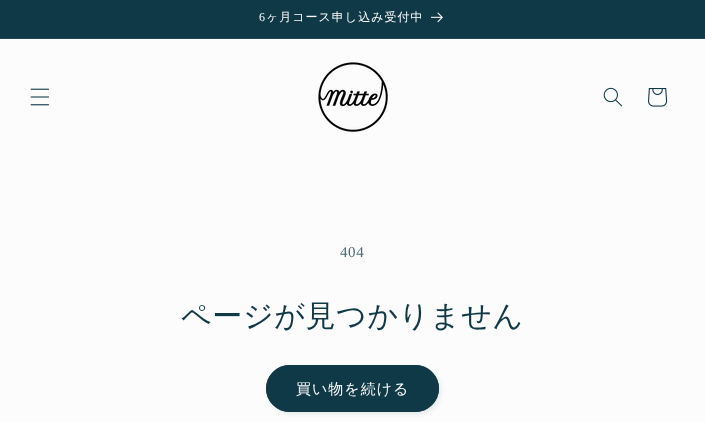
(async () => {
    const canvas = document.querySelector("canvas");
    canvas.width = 705;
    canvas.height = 422;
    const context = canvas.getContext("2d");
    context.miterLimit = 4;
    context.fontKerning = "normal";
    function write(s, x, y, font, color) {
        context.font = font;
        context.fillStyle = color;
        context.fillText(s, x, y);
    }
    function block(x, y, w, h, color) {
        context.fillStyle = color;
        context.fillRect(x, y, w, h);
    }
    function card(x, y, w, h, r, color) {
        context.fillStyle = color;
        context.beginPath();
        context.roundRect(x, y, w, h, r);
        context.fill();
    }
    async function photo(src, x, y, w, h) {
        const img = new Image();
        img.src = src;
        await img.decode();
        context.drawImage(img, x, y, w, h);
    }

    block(0, 0, 705, 422, "rgb(252, 252, 252)");
    block(0, 0, 705, 38, "rgb(16, 57, 72)");
    block(0, 38, 705, 1, "rgb(35, 73, 86)");
    context.letterSpacing = "1px";
    write("6", 259, 21, "12px Liberation Serif", "rgb(252, 252, 252)");
    write("ヶ月コース申し込み受付中", 266, 21, "500 12px WenQuanYi Zen Hei", "rgb(252, 252, 252)");
    await photo("media/1.png", 431, 12, 12, 11);
    await photo("media/2.png", 30, 88, 20, 18);
    await photo("media/3.png", 318, 62, 70, 70);
    await photo("media/4.png", 603, 87, 19, 20);
    await photo("media/5.png", 648, 88, 20, 19);
    context.letterSpacing = "0.6px";
    write("404", 340, 257, "15px Liberation Serif", "rgb(75, 106, 117)");
    write("ページが見つかりません", 181, 326, "500 30px WenQuanYi Zen Hei", "rgb(16, 57, 72)");
    context.fillStyle = "rgba(16, 57, 72, 0.1)";
    context.filter = "blur(2.5px)";
    context.beginPath();
    context.roundRect(268, 367, 173, 47, 23.5);
    context.fill();
    context.filter = "none";
    card(266, 365, 173, 47, 23.5, "rgb(16, 57, 72)");
    context.beginPath();
    context.roundRect(266.5, 365.5, 172, 46, 23);
    context.strokeStyle = "rgb(16, 57, 72)";
    context.stroke();
    context.letterSpacing = "1px";
    write("買い物を続ける", 296, 394, "500 15px WenQuanYi Zen Hei", "rgb(252, 252, 252)");
})();
